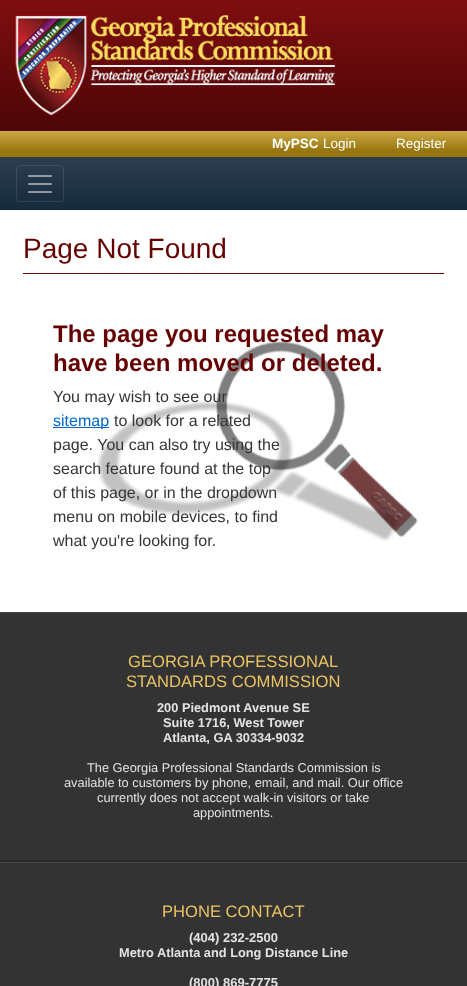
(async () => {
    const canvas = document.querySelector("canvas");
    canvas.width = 467;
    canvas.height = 986;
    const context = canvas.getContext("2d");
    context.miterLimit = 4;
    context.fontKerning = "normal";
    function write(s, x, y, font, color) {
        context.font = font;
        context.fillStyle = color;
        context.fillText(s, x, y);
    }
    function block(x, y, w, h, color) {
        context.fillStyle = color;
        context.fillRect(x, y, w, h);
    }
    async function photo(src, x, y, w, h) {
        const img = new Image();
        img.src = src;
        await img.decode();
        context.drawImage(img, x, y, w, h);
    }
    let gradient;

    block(0, 0, 467, 986, "rgb(255, 255, 255)");
    gradient = context.createLinearGradient(234, 0, 234, 131);
    gradient.addColorStop(0, "rgb(127, 14, 16)");
    gradient.addColorStop(1, "rgb(77, 5, 6)");
    context.fillStyle = gradient;
    context.fillRect(0, 0, 467, 131);
    await photo("media/1.png", 15, 15, 320, 101);
    gradient = context.createLinearGradient(234, 157, 234, 131);
    gradient.addColorStop(0.25, "rgb(153, 118, 13)");
    gradient.addColorStop(1, "rgb(203, 170, 70)");
    context.fillStyle = gradient;
    context.fillRect(0, 131, 376, 26);
    write("MyPSC", 272, 148, "bold 13.5px Liberation Sans", "rgb(255, 255, 255)");
    write("Login", 323, 148, "13.5px Liberation Sans", "rgb(255, 255, 255)");
    gradient = context.createLinearGradient(422, 157, 422, 131);
    gradient.addColorStop(0.25, "rgb(153, 118, 13)");
    gradient.addColorStop(1, "rgb(203, 170, 70)");
    context.fillStyle = gradient;
    context.fillRect(376, 131, 91, 26);
    write("Register", 396, 148, "13.5px Liberation Sans", "rgb(255, 255, 255)");
    gradient = context.createLinearGradient(234, 157, 234, 210);
    gradient.addColorStop(0, "rgb(45, 62, 80)");
    gradient.addColorStop(1, "rgb(22, 42, 61)");
    context.fillStyle = gradient;
    context.fillRect(0, 157, 467, 53);
    context.beginPath();
    context.roundRect(16.5, 165.5, 47, 36, 3.5);
    context.strokeStyle = "rgba(255, 255, 255, 0.1)";
    context.stroke();
    await photo("media/2.png", 28, 175, 24, 18);
    block(23, 273, 421, 1, "rgb(102, 0, 0)");
    write("Page Not Found", 23, 258, "28px Liberation Sans", "rgb(102, 0, 0)");
    await photo("media/3.png", 97, 341, 321, 200);
    write("The page you requested may", 53, 342, "bold 24px Liberation Sans", "rgb(102, 0, 0)");
    write("have been moved or deleted.", 53, 371, "bold 24px Liberation Sans", "rgb(102, 0, 0)");
    write("You may wish to see our", 53, 402, "16px Liberation Sans", "rgb(53, 53, 53)");
    block(53, 427, 56, 1, "rgb(0, 102, 204)");
    write("sitemap", 53, 426, "16px Liberation Sans", "rgb(0, 102, 204)");
    write("to look for a related", 114, 426, "16px Liberation Sans", "rgb(53, 53, 53)");
    write("page. You can also try using the", 53, 450, "16px Liberation Sans", "rgb(53, 53, 53)");
    write("search feature found at the top", 53, 474, "16px Liberation Sans", "rgb(53, 53, 53)");
    write("of this page, or in the dropdown", 53, 498, "16px Liberation Sans", "rgb(53, 53, 53)");
    write("menu on mobile devices, to find", 53, 522, "16px Liberation Sans", "rgb(53, 53, 53)");
    write("what you're looking for.", 53, 546, "16px Liberation Sans", "rgb(53, 53, 53)");
    block(0, 613, 467, 373, "rgb(51, 51, 51)");
    block(0, 612, 467, 1, "rgb(71, 71, 71)");
    write("GEORGIA PROFESSIONAL", 128, 667, "16.6px Liberation Sans", "rgb(234, 195, 100)");
    write("STANDARDS COMMISSION", 126, 687, "16.6px Liberation Sans", "rgb(234, 195, 100)");
    write("200 Piedmont Avenue SE", 157, 712, "bold 12.8px Liberation Sans", "rgb(227, 227, 227)");
    write("Suite 1716, West Tower", 163, 727, "bold 12.8px Liberation Sans", "rgb(227, 227, 227)");
    write("Atlanta, GA 30334-9032", 163, 742, "bold 12.8px Liberation Sans", "rgb(227, 227, 227)");
    write("The Georgia Professional Standards Commission is", 87, 772, "12.8px Liberation Sans", "rgb(227, 227, 227)");
    write("available to customers by phone, email, and mail. Our office", 64, 787, "12.8px Liberation Sans", "rgb(227, 227, 227)");
    write("currently does not accept walk-in visitors or take", 97, 802, "12.8px Liberation Sans", "rgb(227, 227, 227)");
    write("appointments.", 193, 817, "12.8px Liberation Sans", "rgb(227, 227, 227)");
    block(0, 862, 467, 1, "rgb(71, 71, 71)");
    block(0, 860, 467, 2, "rgb(43, 43, 43)");
    write("PHONE CONTACT", 162, 917, "16.6px Liberation Sans", "rgb(234, 195, 100)");
    write("(404) 232-2500", 189, 942, "bold 13px Liberation Sans", "rgb(227, 227, 227)");
    write("Metro Atlanta and Long Distance Line", 119, 957, "bold 12.8px Liberation Sans", "rgb(227, 227, 227)");
    write("(800) 869-7775", 189, 987, "bold 13px Liberation Sans", "rgb(227, 227, 227)");
})();
